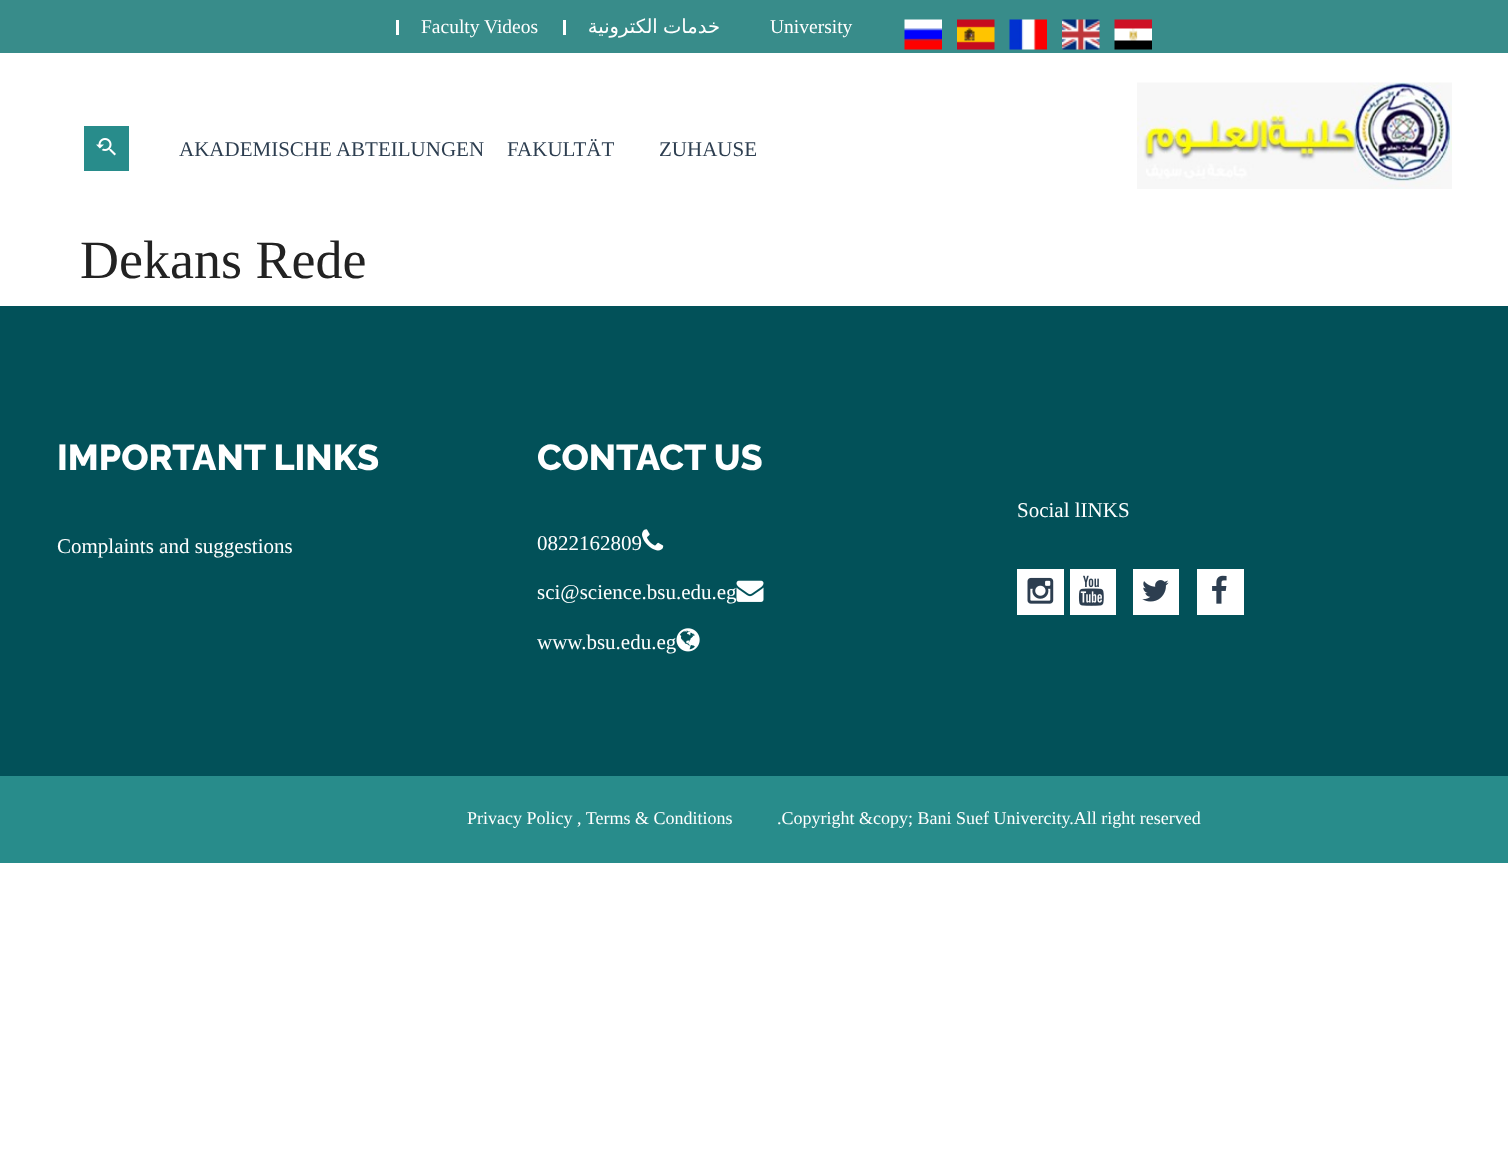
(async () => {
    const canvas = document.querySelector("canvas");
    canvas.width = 1508;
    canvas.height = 1155;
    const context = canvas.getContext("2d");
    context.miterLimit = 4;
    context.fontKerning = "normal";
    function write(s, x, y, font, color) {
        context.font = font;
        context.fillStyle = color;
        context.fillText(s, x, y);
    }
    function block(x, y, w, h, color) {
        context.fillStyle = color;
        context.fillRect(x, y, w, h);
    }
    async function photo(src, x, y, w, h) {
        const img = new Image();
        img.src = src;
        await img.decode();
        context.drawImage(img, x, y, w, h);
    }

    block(0, 0, 1508, 1155, "rgb(255, 255, 255)");
    block(0, 0, 1508, 53, "rgb(56, 140, 138)");
    block(396, 20, 3, 15, "rgb(255, 255, 255)");
    write("Faculty Videos", 421, 33, "19.5px Liberation Serif", "rgb(255, 255, 255)");
    block(563, 20, 3, 15, "rgb(255, 255, 255)");
    context.wordSpacing = "-1px";
    context.direction = "rtl";
    write("خدمات الكترونية", 720, 33, "19.5px DejaVu Sans", "rgb(255, 255, 255)");
    context.wordSpacing = "0px";
    context.direction = "ltr";
    write("University", 770, 33, "19.5px Liberation Serif", "rgb(255, 255, 255)");
    await photo("media/1.png", 904, 19, 38, 31);
    await photo("media/2.png", 957, 19, 38, 31);
    await photo("media/3.png", 1009, 19, 38, 31);
    await photo("media/4.png", 1062, 19, 38, 31);
    await photo("media/5.png", 1114, 19, 38, 31);
    block(84, 126, 45, 45, "rgb(40, 140, 139)");
    await photo("media/6.png", 96, 138, 20, 18);
    write("AKADEMISCHE ABTEILUNGEN", 179, 156, "21px Liberation Serif", "rgb(45, 62, 80)");
    write("FAKULTÄT", 507, 156, "21px Liberation Serif", "rgb(45, 62, 80)");
    write("ZUHAUSE", 659, 156, "21px Liberation Serif", "rgb(45, 62, 80)");
    await photo("media/7.png", 1137, 82, 315, 107);
    write("Dekans Rede", 80, 278, "54px Liberation Serif", "rgb(34, 34, 34)");
    block(0, 306, 1508, 470, "rgb(2, 81, 89)");
    write("IMPORTANT LINKS", 57, 470, "800 36px Raleway", "rgb(255, 255, 255)");
    write("Complaints and suggestions", 57, 553, "21px Liberation Serif", "rgb(255, 255, 255)");
    write("CONTACT US", 537, 470, "800 36px Raleway", "rgb(255, 255, 255)");
    write("0822162809", 537, 550, "21px Liberation Serif", "rgb(255, 255, 255)");
    await photo("media/8.png", 642, 529, 22, 22);
    await photo("media/9.png", 736, 580, 28, 22);
    write("sci@science.bsu.edu.eg", 537, 599, "21px Liberation Serif", "rgb(255, 255, 255)");
    write("www.bsu.edu.eg", 537, 649, "21px Liberation Serif", "rgb(255, 255, 255)");
    await photo("media/10.png", 676, 628, 24, 24);
    write("Social lINKS", 1017, 517, "21px Liberation Serif", "rgb(255, 255, 255)");
    block(1017, 569, 47, 46, "rgb(255, 255, 255)");
    await photo("media/11.png", 1027, 577, 27, 27);
    block(1070, 569, 46, 46, "rgb(255, 255, 255)");
    await photo("media/12.png", 1078, 575, 26, 31);
    block(1133, 569, 46, 46, "rgb(255, 255, 255)");
    await photo("media/13.png", 1142, 580, 27, 22);
    block(1197, 569, 47, 46, "rgb(255, 255, 255)");
    await photo("media/14.png", 1212, 575, 15, 29);
    block(0, 776, 1508, 87, "rgb(40, 140, 139)");
    write("Privacy Policy , Terms & Conditions", 467, 824, "18px Liberation Serif", "rgb(255, 255, 255)");
    write(".Copyright &copy; Bani Suef Univercity.All right reserved", 777, 824, "18px Liberation Serif", "rgb(255, 255, 255)");
})();
